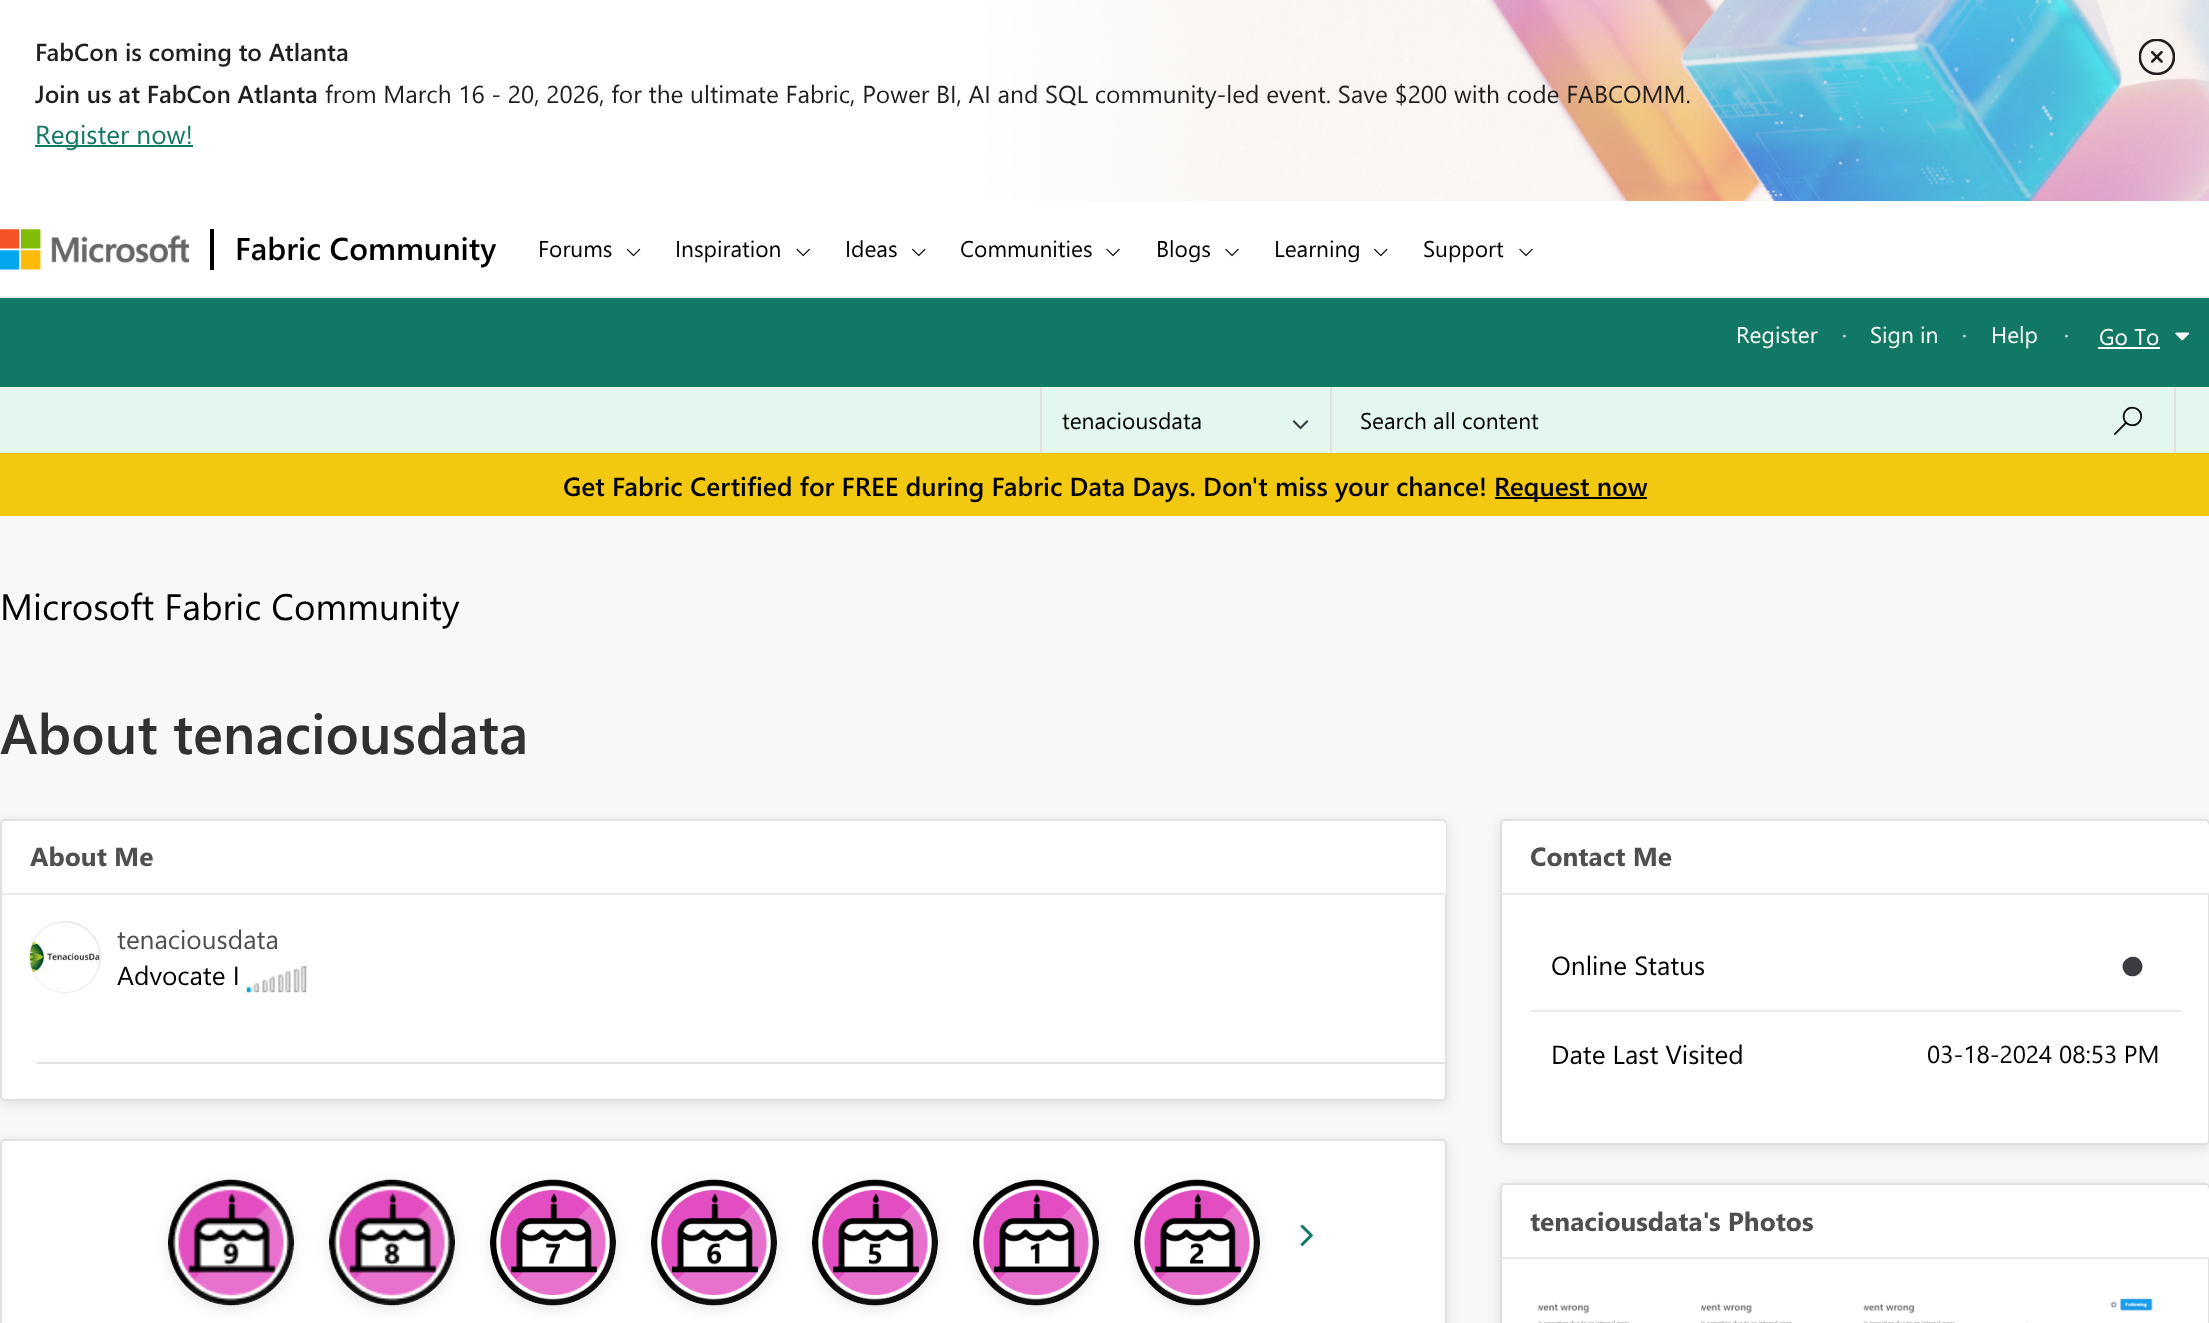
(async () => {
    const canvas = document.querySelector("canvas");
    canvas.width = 2209;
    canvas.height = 1323;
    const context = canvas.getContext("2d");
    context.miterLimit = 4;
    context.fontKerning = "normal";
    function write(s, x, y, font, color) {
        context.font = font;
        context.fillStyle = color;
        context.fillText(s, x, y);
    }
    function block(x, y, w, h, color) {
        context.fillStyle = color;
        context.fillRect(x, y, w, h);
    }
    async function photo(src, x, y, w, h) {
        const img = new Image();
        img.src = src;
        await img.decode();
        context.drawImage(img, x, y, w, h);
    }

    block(0, 0, 2209, 1323, "rgb(248, 248, 248)");
    await photo("media/1.png", 0, 0, 2209, 201);
    write("FabCon is coming to Atlanta", 35, 61, "600 24.5px Segoe UI", "rgb(32, 31, 30)");
    write("Join us at FabCon Atlanta", 35, 103, "600 24.5px 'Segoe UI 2'", "rgb(32, 31, 30)");
    write("from March 16 - 20, 2026, for the ultimate Fabric, Power BI, AI and SQL community-led event. Save $200 with code FABCOMM.", 325, 103, "24.5px Segoe UI", "rgb(32, 31, 30)");
    block(35, 145, 158, 2, "rgb(17, 120, 101)");
    write("Register now!", 35, 144, "26.25px Segoe UI", "rgb(17, 120, 101)");
    await photo("media/2.png", 2139, 39, 36, 36);
    block(0, 201, 2209, 95, "rgb(255, 255, 255)");
    block(0, 296, 2209, 2, "rgb(239, 239, 239)");
    await photo("media/3.png", 0, 229, 189, 41);
    block(210, 229, 4, 41, "rgb(0, 0, 0)");
    write("Fabric Community", 235, 260, "600 31.5px 'Segoe UI 2'", "rgb(0, 0, 0)");
    write("Forums", 538, 257, "22.75px Segoe UI", "rgb(0, 0, 0)");
    await photo("media/4.png", 627, 248, 14, 9);
    write("Inspiration", 675, 257, "22.75px Segoe UI", "rgb(0, 0, 0)");
    await photo("media/5.png", 796, 248, 14, 9);
    write("Ideas", 845, 257, "22.75px Segoe UI", "rgb(0, 0, 0)");
    await photo("media/6.png", 912, 248, 14, 9);
    write("Communities", 960, 257, "22.75px Segoe UI", "rgb(0, 0, 0)");
    await photo("media/7.png", 1106, 248, 14, 9);
    write("Blogs", 1156, 257, "22.75px Segoe UI", "rgb(0, 0, 0)");
    await photo("media/7.png", 1225, 248, 14, 9);
    write("Learning", 1274, 257, "22.75px Segoe UI", "rgb(0, 0, 0)");
    await photo("media/6.png", 1374, 248, 14, 9);
    write("Support", 1423, 257, "22.75px Segoe UI", "rgb(0, 0, 0)");
    await photo("media/7.png", 1519, 248, 14, 9);
    block(0, 298, 2209, 89, "rgb(17, 120, 101)");
    write("Register", 1736, 343, "22.75px Segoe UI", "rgb(255, 255, 255)");
    write("·", 1842, 343, "22.75px Segoe UI", "rgb(255, 255, 255)");
    write("Sign in", 1870, 343, "22.75px Segoe UI", "rgb(255, 255, 255)");
    write("·", 1962, 343, "22.75px Segoe UI", "rgb(255, 255, 255)");
    write("Help", 1991, 343, "22.75px Segoe UI", "rgb(255, 255, 255)");
    write("·", 2064, 343, "22.75px Segoe UI", "rgb(255, 255, 255)");
    write("Go To", 2099, 345, "22.75px Segoe UI", "rgb(255, 255, 255)");
    block(2098, 347, 62, 2, "rgb(255, 255, 255)");
    await photo("media/8.png", 2175, 332, 15, 9);
    block(0, 387, 2209, 66, "rgb(227, 247, 239)");
    block(1040, 387, 2, 66, "rgb(225, 225, 225)");
    write("tenaciousdata", 1062, 429, "22.75px Segoe UI", "rgb(0, 0, 0)");
    await photo("media/9.png", 1292, 420, 17, 10);
    block(2174, 387, 2, 66, "rgb(225, 225, 225)");
    block(1330, 387, 2, 66, "rgb(225, 225, 225)");
    write("Search all content", 1360, 429, "22.75px Segoe UI", "rgb(0, 0, 0)");
    await photo("media/10.png", 2114, 406, 28, 29);
    block(0, 453, 2209, 63, "rgb(242, 200, 17)");
    write("Get Fabric Certified for FREE during Fabric Data Days. Don't miss your chance!", 563, 496, "600 26.25px Segoe UI", "rgb(0, 0, 0)");
    block(1495, 497, 152, 2, "rgb(0, 0, 0)");
    write("Request now", 1494, 496, "600 26.25px Segoe UI", "rgb(0, 0, 0)");
    write("Microsoft Fabric Community", 0, 620, "36.75px Segoe UI", "rgb(0, 0, 0)");
    write("About tenaciousdata", 0, 754, "600 56px Segoe UI", "rgb(50, 49, 48)");
    context.fillStyle = "rgba(0, 0, 0, 0.1)";
    context.filter = "blur(7px)";
    context.beginPath();
    context.roundRect(0, 823, 1447, 281, 5);
    context.fill();
    context.filter = "none";
    context.fillStyle = "rgb(255, 255, 255)";
    context.beginPath();
    context.roundRect(1, 820, 1445, 280, 4);
    context.fill();
    context.strokeStyle = "rgb(224, 224, 224)";
    context.lineWidth = 2;
    context.stroke();
    context.beginPath();
    context.roundRect(2, 821, 1444, 73, [5, 5, 0, 0]);
    context.fill();
    block(2, 893, 1444, 2, "rgb(234, 234, 234)");
    write("About Me", 30, 866, "bold 26.25px Segoe UI", "rgb(79, 79, 79)");
    context.fillStyle = "rgb(196, 196, 196)";
    context.filter = "blur(1px)";
    context.beginPath();
    context.roundRect(30, 922, 70, 70, 35);
    context.fill();
    context.filter = "none";
    await photo("media/11.png", 29, 922, 71, 70);
    write("tenaciousdata", 117, 949, "26.25px Segoe UI", "rgb(79, 79, 79)");
    write("Advocate I", 117, 985, "26.25px Segoe UI", "rgb(0, 0, 0)");
    await photo("media/12.png", 246, 966, 61, 27);
    block(37, 1062, 1409, 2, "rgb(225, 226, 227)");
    context.fillStyle = "rgba(0, 0, 0, 0.1)";
    context.filter = "blur(7px)";
    context.beginPath();
    context.roundRect(0, 1143, 1447, 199, 5);
    context.fill();
    context.filter = "none";
    context.fillStyle = "rgb(255, 255, 255)";
    context.beginPath();
    context.roundRect(1, 1140, 1445, 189, 4);
    context.fill();
    context.stroke();
    context.save();
    context.beginPath();
    context.moveTo(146, 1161);
    context.lineTo(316, 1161);
    context.lineTo(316, 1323);
    context.lineTo(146, 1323);
    context.closePath();
    context.moveTo(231, 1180);
    context.bezierCurveTo(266, 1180, 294, 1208, 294, 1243);
    context.bezierCurveTo(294, 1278, 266, 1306, 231, 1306);
    context.bezierCurveTo(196, 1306, 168, 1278, 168, 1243);
    context.bezierCurveTo(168, 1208, 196, 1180, 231, 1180);
    context.closePath();
    context.clip("evenodd");
    context.fillStyle = "rgba(0, 0, 0, 0.1)";
    context.filter = "blur(7px)";
    context.beginPath();
    context.roundRect(168, 1183, 126, 126, 63);
    context.fill();
    context.filter = "none";
    context.restore();
    await photo("media/13.png", 168, 1179, 126, 127);
    context.save();
    context.beginPath();
    context.moveTo(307, 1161);
    context.lineTo(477, 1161);
    context.lineTo(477, 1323);
    context.lineTo(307, 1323);
    context.closePath();
    context.moveTo(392, 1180);
    context.bezierCurveTo(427, 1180, 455, 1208, 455, 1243);
    context.bezierCurveTo(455, 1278, 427, 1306, 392, 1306);
    context.bezierCurveTo(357, 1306, 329, 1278, 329, 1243);
    context.bezierCurveTo(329, 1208, 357, 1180, 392, 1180);
    context.closePath();
    context.clip("evenodd");
    context.fillStyle = "rgba(0, 0, 0, 0.1)";
    context.filter = "blur(7px)";
    context.beginPath();
    context.roundRect(329, 1183, 126, 126, 63);
    context.fill();
    context.filter = "none";
    context.restore();
    await photo("media/14.png", 329, 1179, 126, 127);
    context.fillStyle = "rgba(0, 0, 0, 0.1)";
    context.filter = "blur(7px)";
    context.beginPath();
    context.roundRect(490, 1183, 126, 126, 63);
    context.fill();
    context.filter = "none";
    await photo("media/15.png", 490, 1179, 126, 127);
    context.filter = "blur(7px)";
    context.beginPath();
    context.roundRect(651, 1183, 126, 126, 63);
    context.fill();
    context.filter = "none";
    await photo("media/16.png", 651, 1179, 126, 127);
    context.filter = "blur(7px)";
    context.beginPath();
    context.roundRect(812, 1183, 126, 126, 63);
    context.fill();
    context.filter = "none";
    await photo("media/17.png", 812, 1179, 126, 127);
    context.filter = "blur(7px)";
    context.beginPath();
    context.roundRect(973, 1183, 126, 126, 63);
    context.fill();
    context.filter = "none";
    await photo("media/18.png", 973, 1179, 126, 127);
    context.filter = "blur(7px)";
    context.beginPath();
    context.roundRect(1134, 1183, 126, 126, 63);
    context.fill();
    context.filter = "none";
    await photo("media/19.png", 1134, 1179, 126, 127);
    await photo("media/20.png", 1300, 1224, 13, 22);
    context.filter = "blur(7px)";
    context.beginPath();
    context.roundRect(1500, 823, 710, 325, 5);
    context.fill();
    context.filter = "none";
    context.fillStyle = "rgb(255, 255, 255)";
    context.beginPath();
    context.roundRect(1501, 820, 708, 324, 4);
    context.fill();
    context.stroke();
    context.beginPath();
    context.roundRect(1502, 821, 707, 73, [5, 5, 0, 0]);
    context.fill();
    block(1502, 893, 707, 2, "rgb(234, 234, 234)");
    write("Contact Me", 1530, 866, "bold 26.25px Segoe UI", "rgb(79, 79, 79)");
    block(1530, 1010, 652, 2, "rgb(234, 234, 234)");
    write("Online Status", 1551, 975, "26.25px Segoe UI", "rgb(0, 0, 0)");
    context.fillStyle = "rgb(60, 60, 65)";
    context.beginPath();
    context.moveTo(2141, 961.5);
    context.bezierCurveTo(2147.5, 973, 2130.5, 982.5, 2124, 971.5);
    context.bezierCurveTo(2117.5, 960.5, 2134.5, 950.5, 2141, 961.5);
    context.closePath();
    context.fill();
    write("Date Last Visited", 1551, 1064, "26.25px Segoe UI", "rgb(0, 0, 0)");
    write("03-18-2024 08:53 PM", 1927, 1063, "24.5px Segoe UI", "rgb(0, 0, 0)");
    context.fillStyle = "rgba(0, 0, 0, 0.1)";
    context.filter = "blur(7px)";
    context.beginPath();
    context.roundRect(1500, 1187, 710, 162, 5);
    context.fill();
    context.filter = "none";
    context.fillStyle = "rgb(255, 255, 255)";
    context.beginPath();
    context.roundRect(1501, 1184, 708, 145, 4);
    context.fill();
    context.stroke();
    context.beginPath();
    context.roundRect(1502, 1185, 707, 73, [5, 5, 0, 0]);
    context.fill();
    block(1502, 1257, 707, 2, "rgb(234, 234, 234)");
    write("tenaciousdata's Photos", 1530, 1231, "bold 26.25px Segoe UI", "rgb(79, 79, 79)");
    await photo("media/21.png", 1538, 1303, 92, 20);
    await photo("media/22.png", 1701, 1303, 91, 20);
    await photo("media/23.png", 1863, 1303, 92, 20);
    await photo("media/24.png", 2026, 1298, 127, 25);
})();
